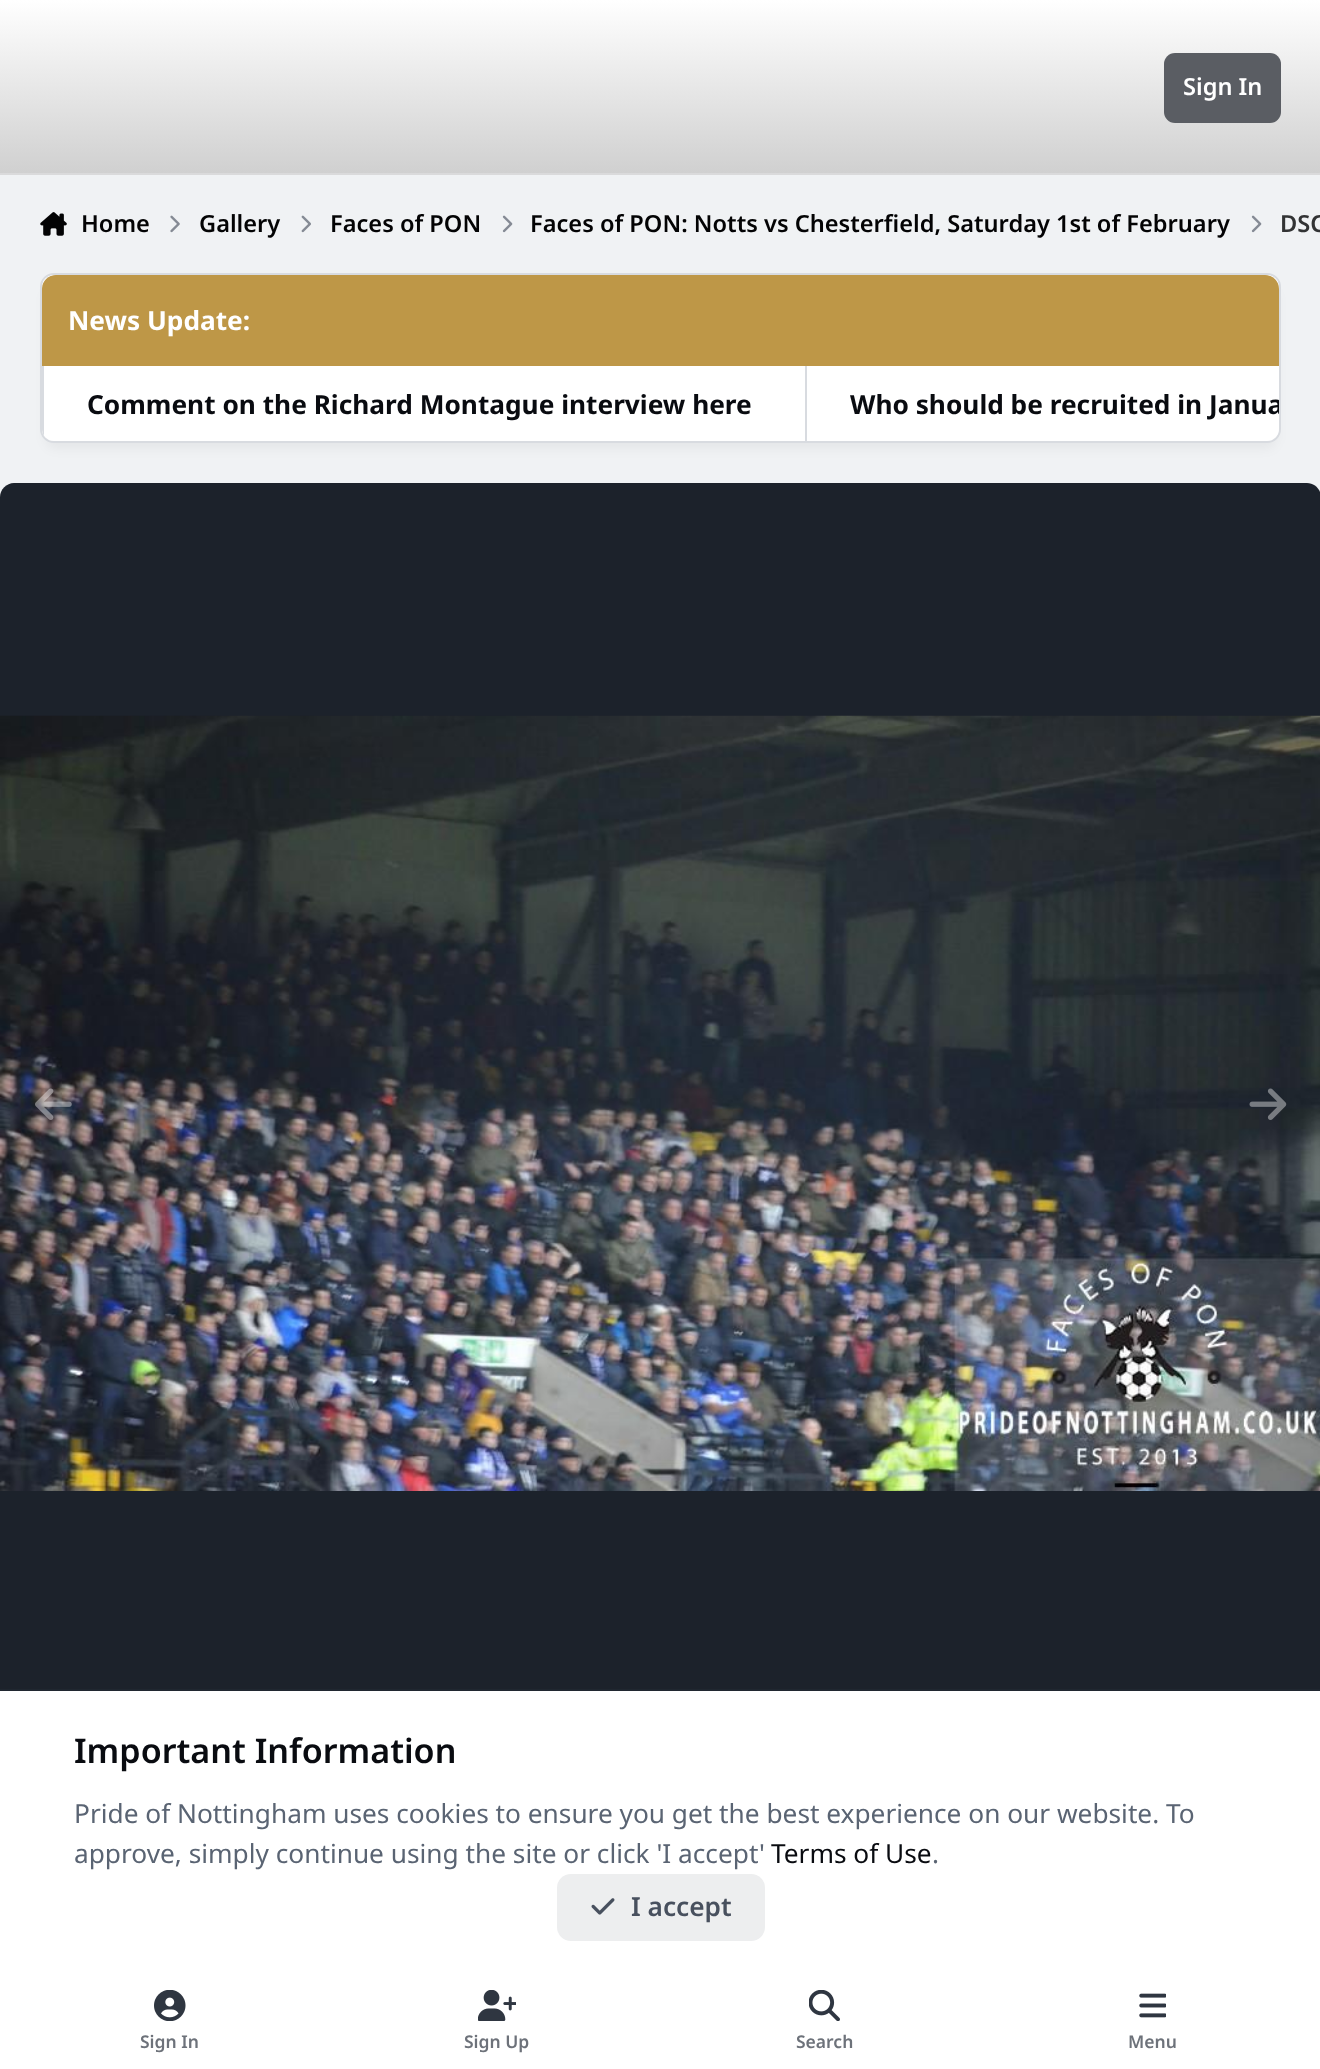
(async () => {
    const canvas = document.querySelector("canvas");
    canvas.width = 1320;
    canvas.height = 2069;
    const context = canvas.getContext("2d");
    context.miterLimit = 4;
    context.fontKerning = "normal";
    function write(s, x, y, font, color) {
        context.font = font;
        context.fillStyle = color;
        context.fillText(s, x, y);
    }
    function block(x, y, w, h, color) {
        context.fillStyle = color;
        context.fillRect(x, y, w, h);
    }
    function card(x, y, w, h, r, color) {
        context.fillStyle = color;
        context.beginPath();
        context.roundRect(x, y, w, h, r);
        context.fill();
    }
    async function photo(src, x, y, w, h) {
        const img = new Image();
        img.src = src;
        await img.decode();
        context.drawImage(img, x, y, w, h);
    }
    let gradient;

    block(0, 0, 1320, 2069, "rgb(240, 242, 244)");
    gradient = context.createLinearGradient(661, 0, 661, 173);
    gradient.addColorStop(0, "rgb(255, 255, 255)");
    gradient.addColorStop(1, "rgb(208, 208, 208)");
    context.fillStyle = gradient;
    context.fillRect(0, 0, 1320, 173);
    block(0, 173, 1320, 2, "rgb(218, 218, 219)");
    card(1164, 53, 117, 70, 11, "rgb(90, 93, 99)");
    write("Sign In", 1183, 95, "600 23.6px Noto Sans", "rgb(255, 255, 255)");
    await photo("media/1.png", 40, 212, 27, 24);
    write("Home", 81, 232, "600 23.6px Noto Sans", "rgb(3, 3, 4)");
    await photo("media/2.png", 170, 215, 10, 18);
    write("Gallery", 199, 232, "600 23.6px Noto Sans", "rgb(3, 3, 4)");
    await photo("media/3.png", 301, 215, 10, 18);
    write("Faces of PON", 330, 232, "600 23.6px Noto Sans", "rgb(3, 3, 4)");
    await photo("media/4.png", 502, 215, 11, 18);
    write("Faces of PON: Notts vs Chesterfield, Saturday 1st of February", 530, 232, "600 23.6px Noto Sans", "rgb(3, 3, 4)");
    await photo("media/4.png", 1251, 215, 11, 18);
    write("DSC", 1280, 232, "600 23.6px Noto Sans", "rgb(50, 51, 52)");
    context.fillStyle = "rgba(2, 3, 6, 0.05)";
    context.filter = "blur(6px)";
    context.beginPath();
    context.roundRect(46, 289, 1230, 159, 9);
    context.fill();
    context.filter = "none";
    context.beginPath();
    context.roundRect(41, 274, 1239, 168, 13);
    context.strokeStyle = "rgb(216, 219, 224)";
    context.lineWidth = 2;
    context.stroke();
    card(42, 275, 1237, 166, 12, "rgb(255, 255, 255)");
    context.save();
    context.beginPath();
    context.roundRect(42, 275, 1237, 166, 12);
    context.clip();
    context.fillStyle = "rgb(190, 151, 71)";
    context.beginPath();
    context.roundRect(42, 275, 1237, 91, [14, 14, 0, 0]);
    context.fill();
    context.restore();
    write("News Update:", 68, 330, "bold 26.25px Noto Sans", "rgb(255, 255, 255)");
    context.save();
    context.beginPath();
    context.roundRect(42, 275, 1237, 166, 12);
    context.clip();
    block(42, 366, 2, 75, "rgb(216, 219, 224)");
    context.restore();
    write("Comment on the Richard Montague interview here", 87, 414, "bold 26.25px Noto Sans", "rgb(9, 11, 16)");
    block(805, 366, 2, 75, "rgb(216, 219, 224)");
    context.save();
    context.beginPath();
    context.rect(42, 366, 1237, 75);
    context.clip();
    write("Who should be recruited in Janua", 850, 414, "bold 26.25px Noto Sans", "rgb(9, 11, 16)");
    context.restore();
    context.fillStyle = "rgb(28, 34, 43)";
    context.beginPath();
    context.moveTo(14, 483);
    context.lineTo(1307, 483);
    context.bezierCurveTo(1314.5, 483, 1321, 489.5, 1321, 497);
    context.lineTo(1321, 1726);
    context.lineTo(0, 1726);
    context.lineTo(0, 497);
    context.bezierCurveTo(0, 489.5, 6.5, 483, 14, 483);
    context.closePath();
    context.fill();
    await photo("media/5.png", 0, 715, 1320, 776);
    await photo("media/6.png", 35, 1088, 37, 32);
    await photo("media/7.png", 1249, 1088, 38, 32);
    block(0, 1689, 1320, 2, "rgb(32, 39, 48)");
    block(0, 1691, 1320, 378, "rgb(255, 255, 255)");
    write("Important Information", 74, 1763, "600 34.1px Noto Sans", "rgb(9, 11, 16)");
    write("Pride of Nottingham uses cookies to ensure you get the best experience on our website. To", 74, 1823, "26.25px Noto Sans", "rgb(90, 100, 115)");
    write("approve, simply continue using the site or click 'I accept'", 74, 1863, "26.25px Noto Sans", "rgb(90, 100, 115)");
    write("Terms of Use", 771, 1863, "26.25px Noto Sans", "rgb(9, 11, 16)");
    write(".", 932, 1863, "26.25px Noto Sans", "rgb(90, 100, 115)");
    card(557, 1874, 208, 67, 14, "rgb(237, 238, 239)");
    await photo("media/8.png", 591, 1898, 24, 17);
    write("I accept", 631, 1916, "600 26.25px Noto Sans", "rgb(72, 80, 94)");
    await photo("media/9.png", 154, 1990, 32, 31);
    write("Sign In", 140, 2048, "600 17.5px Noto Sans", "rgb(109, 114, 122)");
    await photo("media/10.png", 478, 1990, 38, 31);
    write("Sign Up", 464, 2048, "600 17.5px Noto Sans", "rgb(109, 114, 122)");
    await photo("media/11.png", 809, 1990, 31, 31);
    write("Search", 796, 2048, "600 17.5px Noto Sans", "rgb(109, 114, 122)");
    await photo("media/12.png", 1139, 1993, 27, 25);
    write("Menu", 1128, 2048, "600 17.5px Noto Sans", "rgb(109, 114, 122)");
})();
